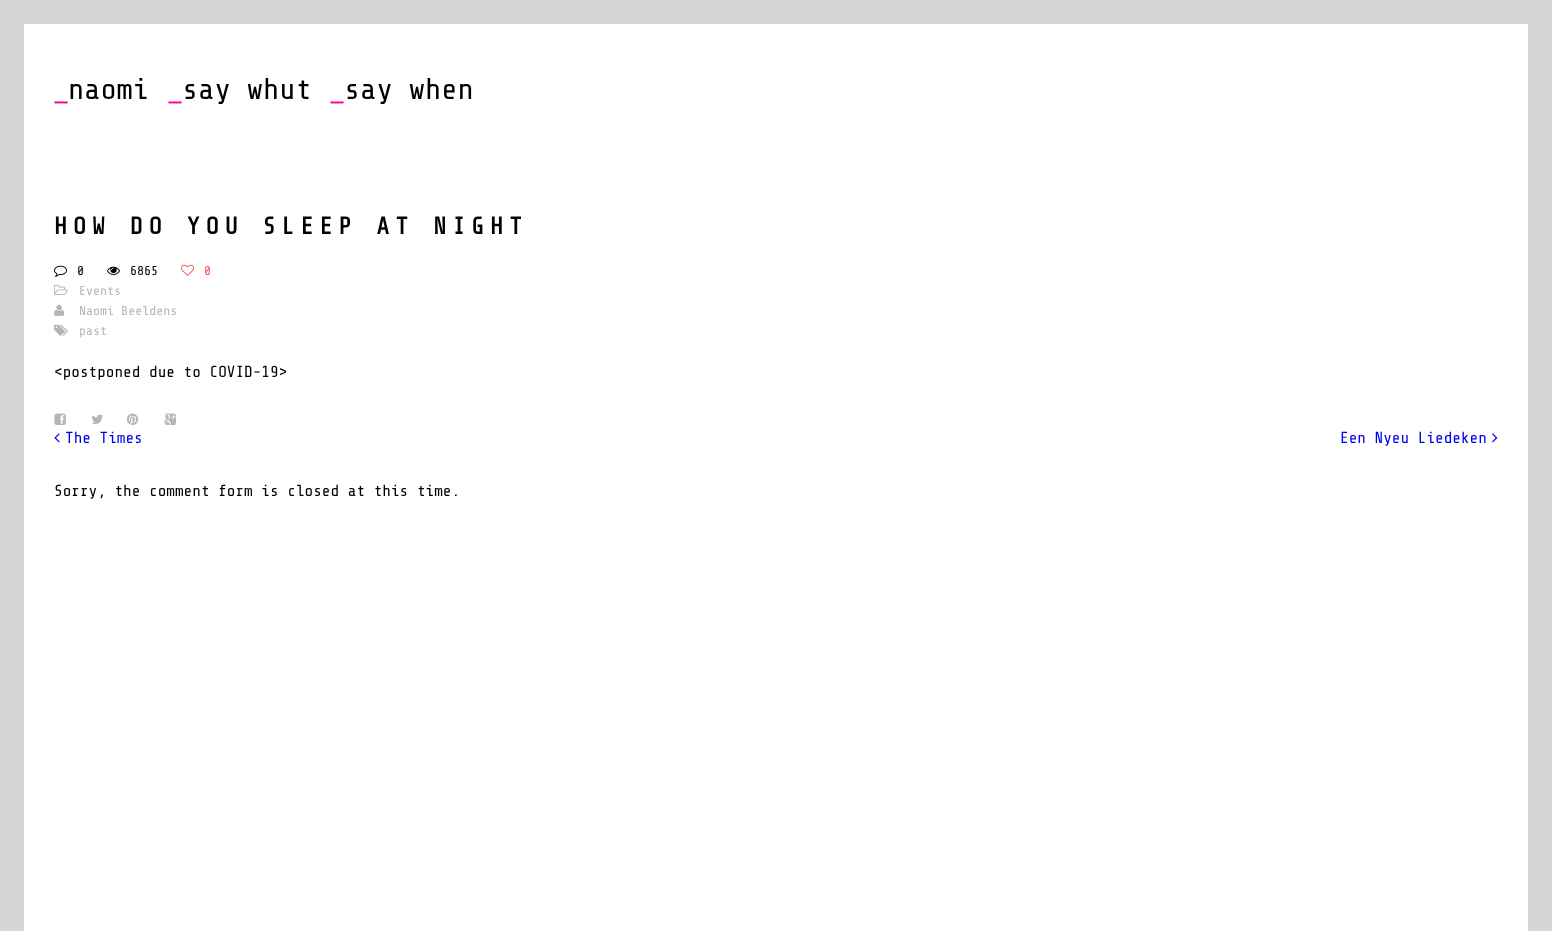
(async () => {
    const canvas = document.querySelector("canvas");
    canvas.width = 1552;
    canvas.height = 931;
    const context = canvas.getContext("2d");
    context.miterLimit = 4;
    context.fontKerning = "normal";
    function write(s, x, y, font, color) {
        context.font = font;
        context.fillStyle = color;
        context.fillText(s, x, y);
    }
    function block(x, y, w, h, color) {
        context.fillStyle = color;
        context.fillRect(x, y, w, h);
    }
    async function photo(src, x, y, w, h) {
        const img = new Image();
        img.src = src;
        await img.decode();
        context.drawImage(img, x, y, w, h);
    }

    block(0, 0, 1552, 931, "rgb(255, 255, 255)");
    context.strokeStyle = "rgb(214, 214, 214)";
    context.lineWidth = 24;
    context.strokeRect(12, 12, 1528, 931);
    write("naomi", 68, 99, "30px Share Tech Mono", "rgb(0, 0, 0)");
    write("_", 54, 99, "26px Share Tech Mono", "rgb(250, 0, 150)");
    write("_", 168, 99, "26px Share Tech Mono", "rgb(250, 0, 150)");
    write("say whut", 182, 99, "30px Share Tech Mono", "rgb(0, 0, 0)");
    write("_", 330, 99, "26px Share Tech Mono", "rgb(250, 0, 150)");
    write("say when", 344, 99, "30px Share Tech Mono", "rgb(0, 0, 0)");
    context.letterSpacing = "6px";
    write("HOW DO YOU SLEEP AT NIGHT", 54, 234, "bold 24px Share Tech Mono", "rgb(0, 0, 0)");
    await photo("media/1.png", 54, 265, 13, 12);
    context.letterSpacing = "0px";
    write("0", 77, 275, "13px Share Tech Mono", "rgb(0, 0, 0)");
    await photo("media/2.png", 107, 266, 13, 9);
    write("6865", 130, 275, "13px Share Tech Mono", "rgb(0, 0, 0)");
    await photo("media/3.png", 181, 264, 13, 12);
    write("0", 204, 275, "13px Share Tech Mono", "rgb(247, 80, 88)");
    await photo("media/4.png", 54, 284, 14, 11);
    write("Events", 79, 295, "13px Share Tech Mono", "rgb(181, 181, 181)");
    await photo("media/5.png", 54, 304, 11, 12);
    write("Naomi Beeldens", 79, 315, "13px Share Tech Mono", "rgb(181, 181, 181)");
    await photo("media/6.png", 54, 324, 14, 12);
    write("past", 79, 335, "13px Share Tech Mono", "rgb(181, 181, 181)");
    write("<postponed due to COVID-19>", 54, 377, "16px Share Tech Mono", "rgb(0, 0, 0)");
    await photo("media/7.png", 54, 413, 12, 12);
    await photo("media/8.png", 92, 414, 11, 11);
    await photo("media/9.png", 127, 413, 12, 12);
    await photo("media/10.png", 164, 413, 12, 12);
    await photo("media/11.png", 54, 433, 6, 10);
    write("The Times", 65, 443, "16px Share Tech Mono", "rgb(0, 0, 238)");
    write("Een Nyeu Liedeken", 1340, 443, "16px Share Tech Mono", "rgb(0, 0, 238)");
    await photo("media/12.png", 1492, 433, 6, 10);
    write("Sorry, the comment form is closed at this time.", 54, 496, "16px Share Tech Mono", "rgb(0, 0, 0)");
})();
